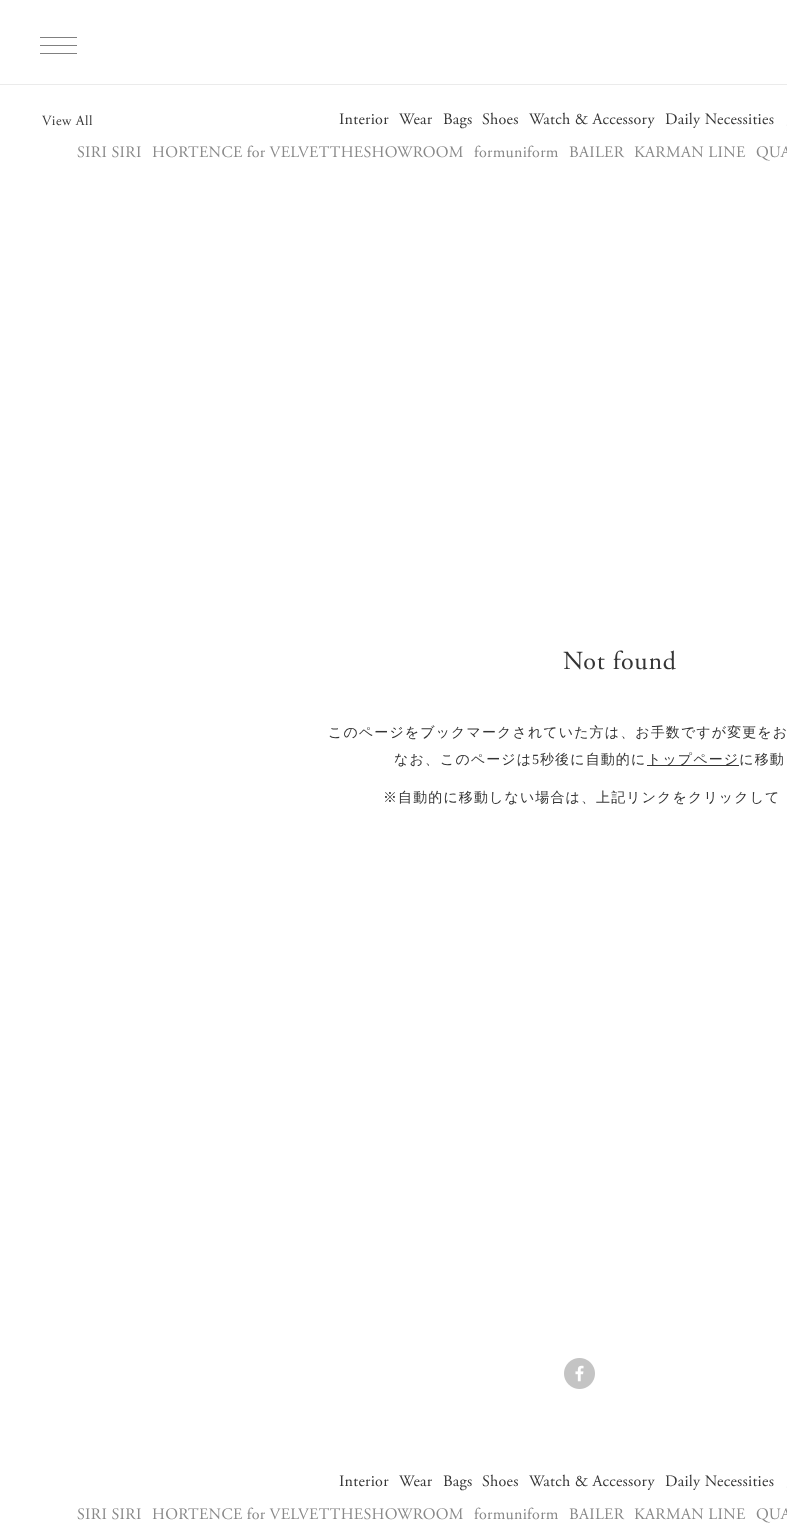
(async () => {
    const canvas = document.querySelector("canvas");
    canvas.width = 787;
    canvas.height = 1536;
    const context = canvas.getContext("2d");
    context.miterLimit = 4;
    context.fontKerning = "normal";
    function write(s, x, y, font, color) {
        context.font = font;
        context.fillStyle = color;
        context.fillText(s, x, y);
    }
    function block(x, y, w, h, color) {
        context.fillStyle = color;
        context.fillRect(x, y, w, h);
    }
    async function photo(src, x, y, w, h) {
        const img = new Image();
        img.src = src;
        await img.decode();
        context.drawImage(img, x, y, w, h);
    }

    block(0, 0, 787, 1536, "rgb(255, 255, 255)");
    block(40, 37, 37, 1, "rgb(128, 128, 128)");
    block(40, 45, 37, 1, "rgb(128, 128, 128)");
    block(40, 53, 37, 1, "rgb(128, 128, 128)");
    block(0, 84, 787, 1, "rgb(235, 235, 235)");
    context.letterSpacing = "0.5px";
    write("View All", 42, 125, "14px Adobe Garamond", "rgb(52, 52, 52)");
    context.letterSpacing = "0.3px";
    write("Interior", 339, 124, "16px Adobe Garamond", "rgb(52, 52, 52)");
    write("Wear", 399, 124, "16px Adobe Garamond", "rgb(52, 52, 52)");
    write("Bags", 443, 124, "16px Adobe Garamond", "rgb(52, 52, 52)");
    write("Shoes", 482, 124, "16px Adobe Garamond", "rgb(52, 52, 52)");
    write("Watch & Accessory", 529, 124, "16px Adobe Garamond", "rgb(52, 52, 52)");
    write("Daily Necessities", 665, 124, "16px Adobe Garamond", "rgb(52, 52, 52)");
    context.fillStyle = "rgb(196, 196, 196)";
    context.beginPath();
    context.moveTo(786.5, 125);
    context.lineTo(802.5, 113.5);
    context.lineTo(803.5, 114);
    context.lineTo(787, 125.5);
    context.closePath();
    context.fill();
    write("SIRI SIRI", 77, 157, "16px Adobe Garamond", "rgb(136, 136, 136)");
    write("HORTENCE for VELVETTHESHOWROOM", 152, 157, "16px Adobe Garamond", "rgb(136, 136, 136)");
    write("formuniform", 474, 157, "16px Adobe Garamond", "rgb(136, 136, 136)");
    write("BAILER", 569, 157, "16px Adobe Garamond", "rgb(136, 136, 136)");
    write("KARMAN LINE", 634, 157, "16px Adobe Garamond", "rgb(136, 136, 136)");
    write("QUA", 756, 157, "16px Adobe Garamond", "rgb(136, 136, 136)");
    context.letterSpacing = "0.75px";
    write("Not found", 563, 669, "26px Adobe Garamond", "rgb(52, 52, 52)");
    context.letterSpacing = "1.1px";
    write("このページをブックマークされていた方は、お手数ですが変更をお", 328, 737, "500 14px WenQuanYi Zen Hei", "rgb(52, 52, 52)");
    write("なお、このページは", 394, 764, "500 14px WenQuanYi Zen Hei", "rgb(52, 52, 52)");
    write("5", 532, 764, "14px Liberation Serif", "rgb(52, 52, 52)");
    write("秒後に自動的に", 540, 764, "500 14px WenQuanYi Zen Hei", "rgb(52, 52, 52)");
    block(647, 765, 92, 1, "rgb(52, 52, 52)");
    write("トップページに移動", 647, 764, "500 14px WenQuanYi Zen Hei", "rgb(52, 52, 52)");
    write("※自動的に移動しない場合は、上記リンクをクリックして", 383, 802, "500 14px WenQuanYi Zen Hei", "rgb(52, 52, 52)");
    await photo("media/1.png", 564, 1358, 31, 31);
    context.letterSpacing = "0.3px";
    write("Interior", 339, 1486, "16px Adobe Garamond", "rgb(52, 52, 52)");
    write("Wear", 399, 1486, "16px Adobe Garamond", "rgb(52, 52, 52)");
    write("Bags", 443, 1486, "16px Adobe Garamond", "rgb(52, 52, 52)");
    write("Shoes", 482, 1486, "16px Adobe Garamond", "rgb(52, 52, 52)");
    write("Watch & Accessory", 529, 1486, "16px Adobe Garamond", "rgb(52, 52, 52)");
    write("Daily Necessities", 665, 1486, "16px Adobe Garamond", "rgb(52, 52, 52)");
    context.fillStyle = "rgb(196, 196, 196)";
    context.beginPath();
    context.moveTo(786.5, 1487);
    context.lineTo(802.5, 1475.5);
    context.lineTo(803.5, 1476);
    context.lineTo(787, 1487.5);
    context.closePath();
    context.fill();
    write("SIRI SIRI", 77, 1519, "16px Adobe Garamond", "rgb(136, 136, 136)");
    write("HORTENCE for VELVETTHESHOWROOM", 152, 1519, "16px Adobe Garamond", "rgb(136, 136, 136)");
    write("formuniform", 474, 1519, "16px Adobe Garamond", "rgb(136, 136, 136)");
    write("BAILER", 569, 1519, "16px Adobe Garamond", "rgb(136, 136, 136)");
    write("KARMAN LINE", 634, 1519, "16px Adobe Garamond", "rgb(136, 136, 136)");
    write("QUA", 756, 1519, "16px Adobe Garamond", "rgb(136, 136, 136)");
})();
